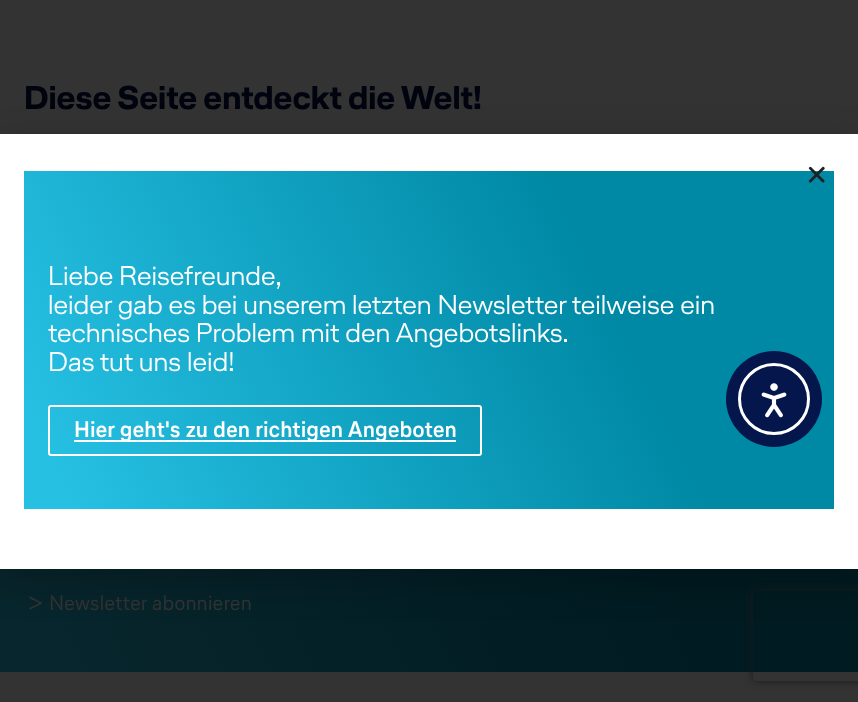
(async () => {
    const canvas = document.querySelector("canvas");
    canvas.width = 858;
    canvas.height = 702;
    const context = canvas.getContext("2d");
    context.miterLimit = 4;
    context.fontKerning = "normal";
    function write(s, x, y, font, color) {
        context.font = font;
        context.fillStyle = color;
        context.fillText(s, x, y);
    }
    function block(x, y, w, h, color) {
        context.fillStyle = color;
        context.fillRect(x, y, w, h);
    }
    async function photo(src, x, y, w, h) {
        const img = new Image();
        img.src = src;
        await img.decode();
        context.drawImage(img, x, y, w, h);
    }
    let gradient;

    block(0, 0, 858, 702, "rgb(51, 51, 51)");
    write("Diese Seite entdeckt die Welt!", 24, 109, "bold 33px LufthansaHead", "rgb(1, 4, 15)");
    gradient = context.createLinearGradient(849, 281, 9, 691);
    gradient.addColorStop(0.3, "rgb(0, 27, 33)");
    gradient.addColorStop(0.95, "rgb(8, 38, 45)");
    context.fillStyle = gradient;
    context.fillRect(0, 569, 858, 103);
    context.letterSpacing = "-8px";
    write("˃", 28, 612, "bold 27px Liberation Serif", "rgb(51, 51, 51)");
    context.letterSpacing = "0px";
    write("Newsletter abonnieren", 49, 610, "21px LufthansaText", "rgb(51, 51, 51)");
    context.fillStyle = "rgba(0, 0, 0, 0.2)";
    context.filter = "blur(17px)";
    context.beginPath();
    context.rect(-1, 141, 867, 444);
    context.fill();
    context.filter = "none";
    block(0, 134, 858, 435, "rgb(255, 255, 255)");
    gradient = context.createLinearGradient(823, 148, 35, 532);
    gradient.addColorStop(0.3, "rgb(0, 137, 165)");
    gradient.addColorStop(0.95, "rgb(38, 192, 227)");
    context.fillStyle = gradient;
    context.fillRect(24, 171, 810, 338);
    await photo("media/1.png", 808, 166, 17, 17);
    write("Liebe Reisefreunde,", 48, 285, "300 27px LufthansaHead", "rgb(255, 255, 255)");
    write("leider gab es bei unserem letzten Newsletter teilweise ein", 48, 314, "300 27px LufthansaHead", "rgb(255, 255, 255)");
    write("technisches Problem mit den Angebotslinks.", 48, 342, "300 27px LufthansaHead", "rgb(255, 255, 255)");
    write("Das tut uns leid!", 48, 371, "300 27px LufthansaHead", "rgb(255, 255, 255)");
    context.beginPath();
    context.roundRect(49, 406, 432, 49, 2);
    context.strokeStyle = "rgb(255, 255, 255)";
    context.lineWidth = 2;
    context.stroke();
    block(74, 440, 382, 2, "rgb(255, 255, 255)");
    write("Hier geht's zu den richtigen Angeboten", 74, 437, "bold 22.5px LufthansaText", "rgb(255, 255, 255)");
    context.fillStyle = "rgb(5, 22, 77)";
    context.beginPath();
    context.arc(774, 399, 48, 0, Math.PI * 2);
    context.fill();
    context.beginPath();
    context.arc(774, 399, 34.5, 0, Math.PI * 2);
    context.lineWidth = 3;
    context.stroke();
    await photo("media/2.png", 761, 383, 26, 35);
    context.save();
    context.beginPath();
    context.moveTo(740, 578);
    context.lineTo(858, 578);
    context.lineTo(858, 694);
    context.lineTo(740, 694);
    context.closePath();
    context.moveTo(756, 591);
    context.lineTo(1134, 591);
    context.bezierCurveTo(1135.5, 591, 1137, 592.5, 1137, 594);
    context.lineTo(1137, 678);
    context.bezierCurveTo(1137, 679.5, 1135.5, 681, 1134, 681);
    context.lineTo(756, 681);
    context.bezierCurveTo(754.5, 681, 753, 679.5, 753, 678);
    context.lineTo(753, 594);
    context.bezierCurveTo(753, 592.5, 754.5, 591, 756, 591);
    context.closePath();
    context.clip("evenodd");
    context.fillStyle = "rgb(26, 26, 26)";
    context.filter = "blur(4px)";
    context.beginPath();
    context.roundRect(753, 591, 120, 90, 3);
    context.fill();
    context.filter = "none";
    context.restore();
})();
